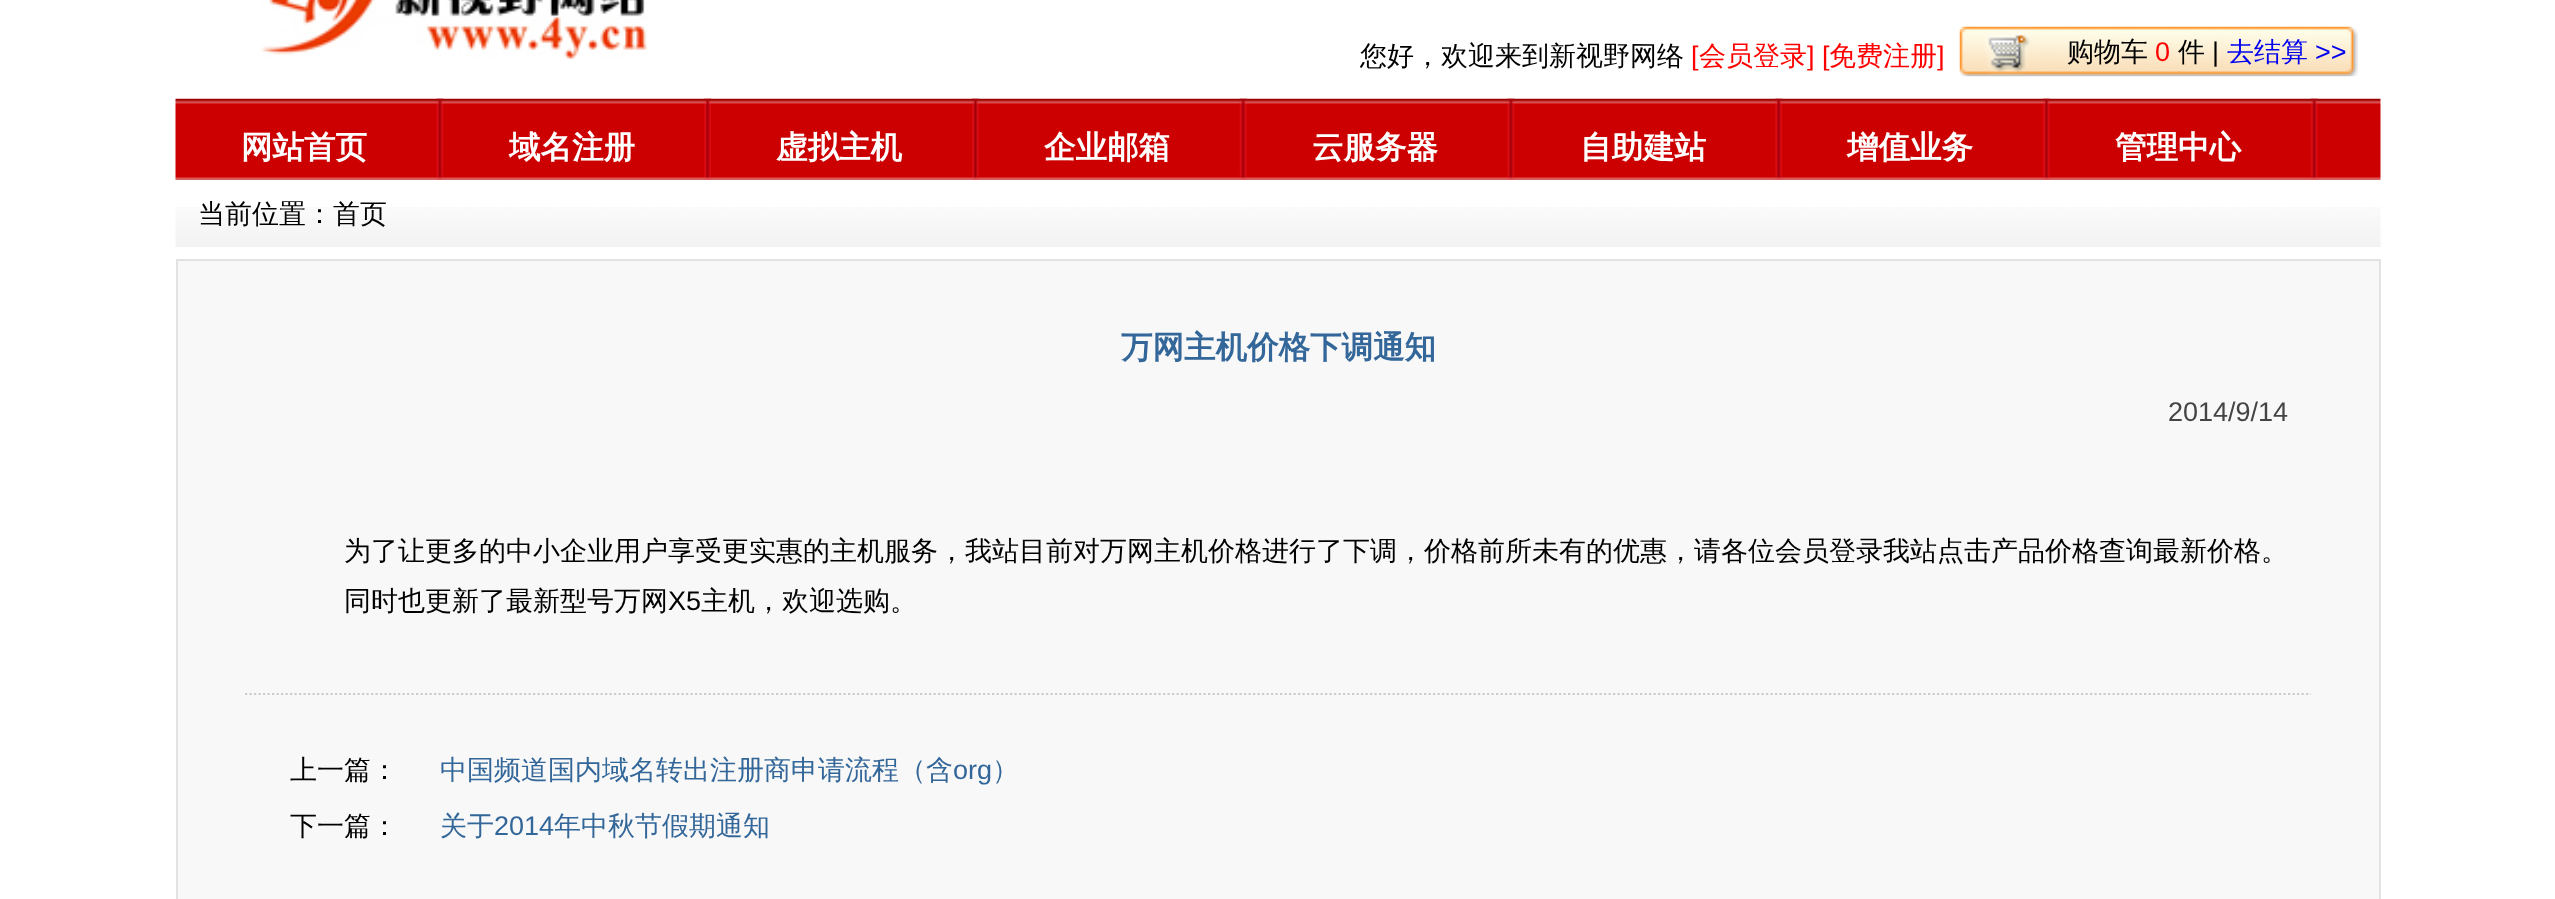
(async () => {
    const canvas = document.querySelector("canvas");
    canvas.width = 2555;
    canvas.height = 899;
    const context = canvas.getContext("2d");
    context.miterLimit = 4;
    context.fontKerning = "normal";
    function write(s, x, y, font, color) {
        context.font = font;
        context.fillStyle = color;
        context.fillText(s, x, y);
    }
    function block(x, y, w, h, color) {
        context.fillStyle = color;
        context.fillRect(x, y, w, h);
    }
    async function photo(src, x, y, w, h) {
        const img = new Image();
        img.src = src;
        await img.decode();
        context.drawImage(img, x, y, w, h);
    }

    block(0, 0, 2555, 899, "rgb(255, 255, 255)");
    await photo("media/1.png", 261, 0, 387, 59);
    write("您好，欢迎来到新视野网络", 1360, 65, "500 27px WenQuanYi Zen Hei", "rgb(0, 0, 0)");
    write("[", 1691, 65, "27px Liberation Sans", "rgb(255, 0, 0)");
    write("会员登录", 1699, 65, "500 27px WenQuanYi Zen Hei", "rgb(255, 0, 0)");
    write("] [", 1807, 65, "27px Liberation Sans", "rgb(255, 0, 0)");
    write("免费注册", 1829, 65, "500 27px WenQuanYi Zen Hei", "rgb(255, 0, 0)");
    write("]", 1937, 65, "27px Liberation Sans", "rgb(255, 0, 0)");
    await photo("media/2.png", 1959, 26, 399, 51);
    write("购物车", 2067, 61, "500 27px WenQuanYi Zen Hei", "rgb(0, 0, 0)");
    write("0", 2155, 61, "27px Liberation Sans", "rgb(255, 0, 0)");
    write("件", 2178, 61, "500 27px WenQuanYi Zen Hei", "rgb(0, 0, 0)");
    write("|", 2212, 61, "27px Liberation Sans", "rgb(0, 0, 0)");
    write("去结算", 2227, 61, "500 27px WenQuanYi Zen Hei", "rgb(0, 0, 238)");
    write(">>", 2315, 61, "27px Liberation Sans", "rgb(0, 0, 238)");
    await photo("media/3.png", 175, 98, 2206, 82);
    await photo("media/4.png", 436, 98, 8, 82);
    write("网站首页", 241, 158, "bold 31.5px WenQuanYi Zen Hei", "rgb(255, 255, 255)");
    await photo("media/5.png", 704, 98, 7, 82);
    write("域名注册", 509, 158, "bold 31.5px WenQuanYi Zen Hei", "rgb(255, 255, 255)");
    await photo("media/6.png", 972, 98, 7, 82);
    write("虚拟主机", 776, 158, "bold 31.5px WenQuanYi Zen Hei", "rgb(255, 255, 255)");
    await photo("media/7.png", 1239, 98, 8, 82);
    write("企业邮箱", 1044, 158, "bold 31.5px WenQuanYi Zen Hei", "rgb(255, 255, 255)");
    await photo("media/4.png", 1507, 98, 8, 82);
    write("云服务器", 1312, 158, "bold 31.5px WenQuanYi Zen Hei", "rgb(255, 255, 255)");
    await photo("media/5.png", 1775, 98, 7, 82);
    write("自助建站", 1580, 158, "bold 31.5px WenQuanYi Zen Hei", "rgb(255, 255, 255)");
    await photo("media/8.png", 2043, 98, 7, 82);
    write("增值业务", 1847, 158, "bold 31.5px WenQuanYi Zen Hei", "rgb(255, 255, 255)");
    await photo("media/7.png", 2310, 98, 8, 82);
    write("管理中心", 2115, 158, "bold 31.5px WenQuanYi Zen Hei", "rgb(255, 255, 255)");
    await photo("media/9.png", 175, 207, 2206, 40);
    write("当前位置：首页", 198, 223, "500 27px WenQuanYi Zen Hei", "rgb(0, 0, 0)");
    context.fillStyle = "rgb(248, 248, 248)";
    context.beginPath();
    context.rect(177, 260, 2203, 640);
    context.fill();
    context.strokeStyle = "rgb(226, 226, 226)";
    context.lineWidth = 2;
    context.stroke();
    write("万网主机价格下调通知", 1121, 358, "bold 31.5px WenQuanYi Zen Hei", "rgb(51, 102, 153)");
    write("2014/9/14", 2168, 421, "27px Liberation Sans", "rgb(68, 68, 68)");
    write("为了让更多的中小企业用户享受更实惠的主机服务，我站目前对万网主机价格进行了下调，价格前所未有的优惠，请各位会员登录我站点击产品价格查询最新价格。", 344, 560, "500 27px WenQuanYi Zen Hei", "rgb(0, 0, 0)");
    write("同时也更新了最新型号万网", 344, 610, "500 27px WenQuanYi Zen Hei", "rgb(0, 0, 0)");
    write("X5", 668, 610, "27px Liberation Sans", "rgb(0, 0, 0)");
    write("主机，欢迎选购。", 701, 610, "500 27px WenQuanYi Zen Hei", "rgb(0, 0, 0)");
    context.beginPath();
    context.moveTo(245, 694);
    context.lineTo(2311, 694);
    context.strokeStyle = "rgb(204, 204, 204)";
    context.lineWidth = 2.2;
    context.setLineDash([2.25, 2.25]);
    context.stroke();
    write("上一篇：", 290, 779, "500 27px WenQuanYi Zen Hei", "rgb(0, 0, 0)");
    write("中国频道国内域名转出注册商申请流程（含", 440, 779, "500 27px WenQuanYi Zen Hei", "rgb(51, 102, 153)");
    write("org", 953, 779, "27px Liberation Sans", "rgb(51, 102, 153)");
    write("）", 992, 779, "500 27px WenQuanYi Zen Hei", "rgb(51, 102, 153)");
    write("下一篇：", 290, 835, "500 27px WenQuanYi Zen Hei", "rgb(0, 0, 0)");
    write("关于", 440, 835, "500 27px WenQuanYi Zen Hei", "rgb(51, 102, 153)");
    write("2014", 494, 835, "27px Liberation Sans", "rgb(51, 102, 153)");
    write("年中秋节假期通知", 554, 835, "500 27px WenQuanYi Zen Hei", "rgb(51, 102, 153)");
})();
